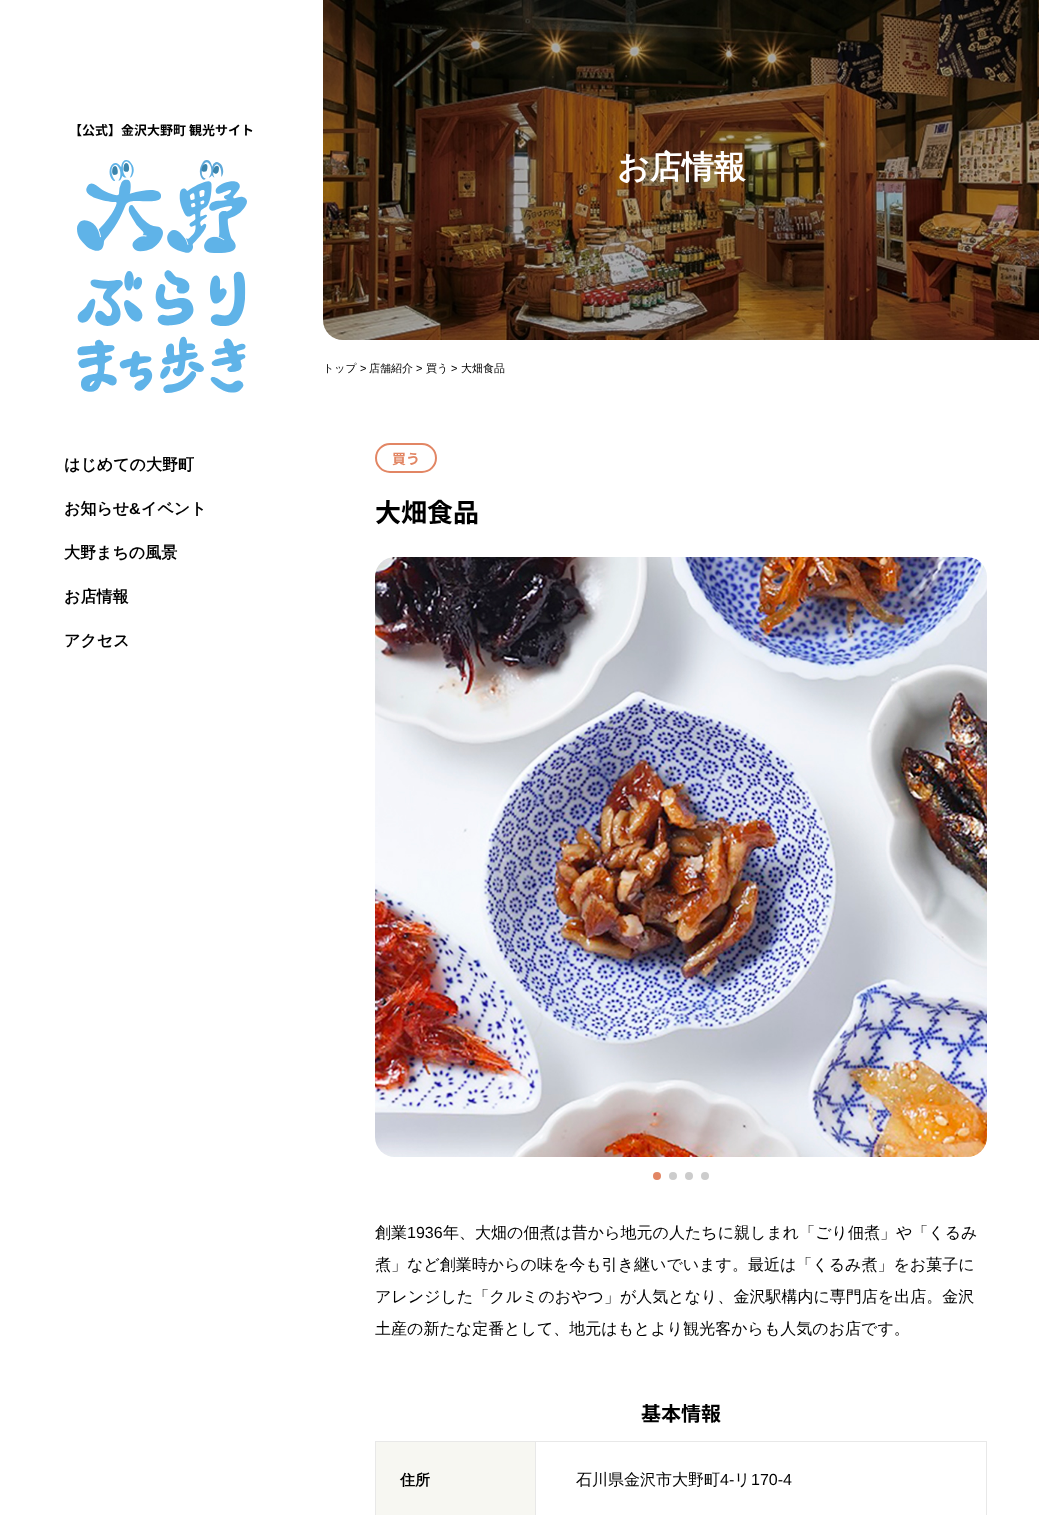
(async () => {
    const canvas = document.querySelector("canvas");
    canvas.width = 1039;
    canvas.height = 1515;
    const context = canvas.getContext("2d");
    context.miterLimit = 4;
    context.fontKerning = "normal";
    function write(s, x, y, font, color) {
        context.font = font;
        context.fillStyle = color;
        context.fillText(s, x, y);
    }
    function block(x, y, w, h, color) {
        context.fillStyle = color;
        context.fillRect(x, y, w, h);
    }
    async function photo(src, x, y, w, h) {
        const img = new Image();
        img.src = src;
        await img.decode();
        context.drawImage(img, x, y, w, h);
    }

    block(0, 0, 1039, 1515, "rgb(255, 255, 255)");
    write("【公式】金沢大野町 観光サイト", 69, 135, "bold 13px Noto Sans JP", "rgb(0, 0, 0)");
    await photo("media/1.png", 77, 160, 170, 233);
    write("はじめての大野町", 64, 470, "bold 16px WenQuanYi Zen Hei", "rgb(0, 0, 0)");
    write("お知らせ", 64, 514, "bold 16px WenQuanYi Zen Hei", "rgb(0, 0, 0)");
    write("&", 129, 514, "bold 16px Liberation Sans", "rgb(0, 0, 0)");
    write("イベント", 141, 514, "bold 16px WenQuanYi Zen Hei", "rgb(0, 0, 0)");
    write("大野まちの風景", 64, 558, "bold 16px WenQuanYi Zen Hei", "rgb(0, 0, 0)");
    write("お店情報", 64, 602, "bold 16px WenQuanYi Zen Hei", "rgb(0, 0, 0)");
    write("アクセス", 64, 646, "bold 16px WenQuanYi Zen Hei", "rgb(0, 0, 0)");
    await photo("media/2.png", 323, 0, 716, 340);
    write("お店情報", 617, 178, "bold 32px WenQuanYi Zen Hei", "rgb(255, 255, 255)");
    write("トップ", 323, 372, "500 11px WenQuanYi Zen Hei", "rgb(0, 0, 0)");
    write(">", 360, 372, "11px Liberation Sans", "rgb(0, 0, 0)");
    write("店舗紹介", 369, 372, "500 11px WenQuanYi Zen Hei", "rgb(0, 0, 0)");
    write(">", 416, 372, "11px Liberation Sans", "rgb(0, 0, 0)");
    write("買う", 426, 372, "500 11px WenQuanYi Zen Hei", "rgb(0, 0, 0)");
    write(">", 451, 372, "11px Liberation Sans", "rgb(0, 0, 0)");
    write("大畑食品", 461, 372, "500 11px WenQuanYi Zen Hei", "rgb(0, 0, 0)");
    context.beginPath();
    context.roundRect(376, 444, 60, 28, 14);
    context.strokeStyle = "rgb(226, 134, 100)";
    context.lineWidth = 2;
    context.stroke();
    write("買う", 392, 464, "bold 14px Noto Sans JP", "rgb(226, 134, 100)");
    write("大畑食品", 375, 522, "bold 26px Noto Sans JP", "rgb(0, 0, 0)");
    await photo("media/3.png", 375, 557, 612, 600);
    context.fillStyle = "rgb(226, 134, 100)";
    context.beginPath();
    context.arc(657, 1176, 4, 0, Math.PI * 2);
    context.fill();
    context.fillStyle = "rgb(204, 204, 204)";
    context.beginPath();
    context.arc(673, 1176, 4, 0, Math.PI * 2);
    context.fill();
    context.beginPath();
    context.arc(689, 1176, 4, 0, Math.PI * 2);
    context.fill();
    context.beginPath();
    context.arc(705, 1176, 4, 0, Math.PI * 2);
    context.fill();
    write("創業", 375, 1238, "500 16px WenQuanYi Zen Hei", "rgb(0, 0, 0)");
    write("1936", 407, 1238, "16px Liberation Sans", "rgb(0, 0, 0)");
    write("年、大畑の佃煮は昔から地元の人たちに親しまれ「ごり佃煮」や「くるみ", 443, 1238, "500 16px WenQuanYi Zen Hei", "rgb(0, 0, 0)");
    write("煮」など創業時からの味を今も引き継いでいます。最近は「くるみ煮」をお菓子に", 375, 1270, "500 16px WenQuanYi Zen Hei", "rgb(0, 0, 0)");
    write("アレンジした「クルミのおやつ」が人気となり、金沢駅構内に専門店を出店。金沢", 375, 1302, "500 16px WenQuanYi Zen Hei", "rgb(0, 0, 0)");
    write("土産の新たな定番として、地元はもとより観光客からも人気のお店です。", 375, 1334, "500 16px WenQuanYi Zen Hei", "rgb(0, 0, 0)");
    write("基本情報", 641, 1421, "bold 20px Noto Sans JP", "rgb(0, 0, 0)");
    block(376, 1442, 159, 73, "rgb(247, 247, 242)");
    block(535, 1441, 452, 1, "rgb(232, 232, 232)");
    block(535, 1441, 1, 74, "rgb(232, 232, 232)");
    block(375, 1441, 161, 1, "rgb(232, 232, 232)");
    block(375, 1441, 1, 74, "rgb(232, 232, 232)");
    write("住所", 400, 1485, "bold 15px WenQuanYi Zen Hei", "rgb(0, 0, 0)");
    block(986, 1441, 1, 74, "rgb(232, 232, 232)");
    write("石川県金沢市大野町", 576, 1485, "500 16px WenQuanYi Zen Hei", "rgb(0, 0, 0)");
    write("4-", 720, 1485, "16px Liberation Sans", "rgb(0, 0, 0)");
    write("リ", 734, 1485, "500 16px WenQuanYi Zen Hei", "rgb(0, 0, 0)");
    write("170-4", 751, 1485, "16px Liberation Sans", "rgb(0, 0, 0)");
})();
